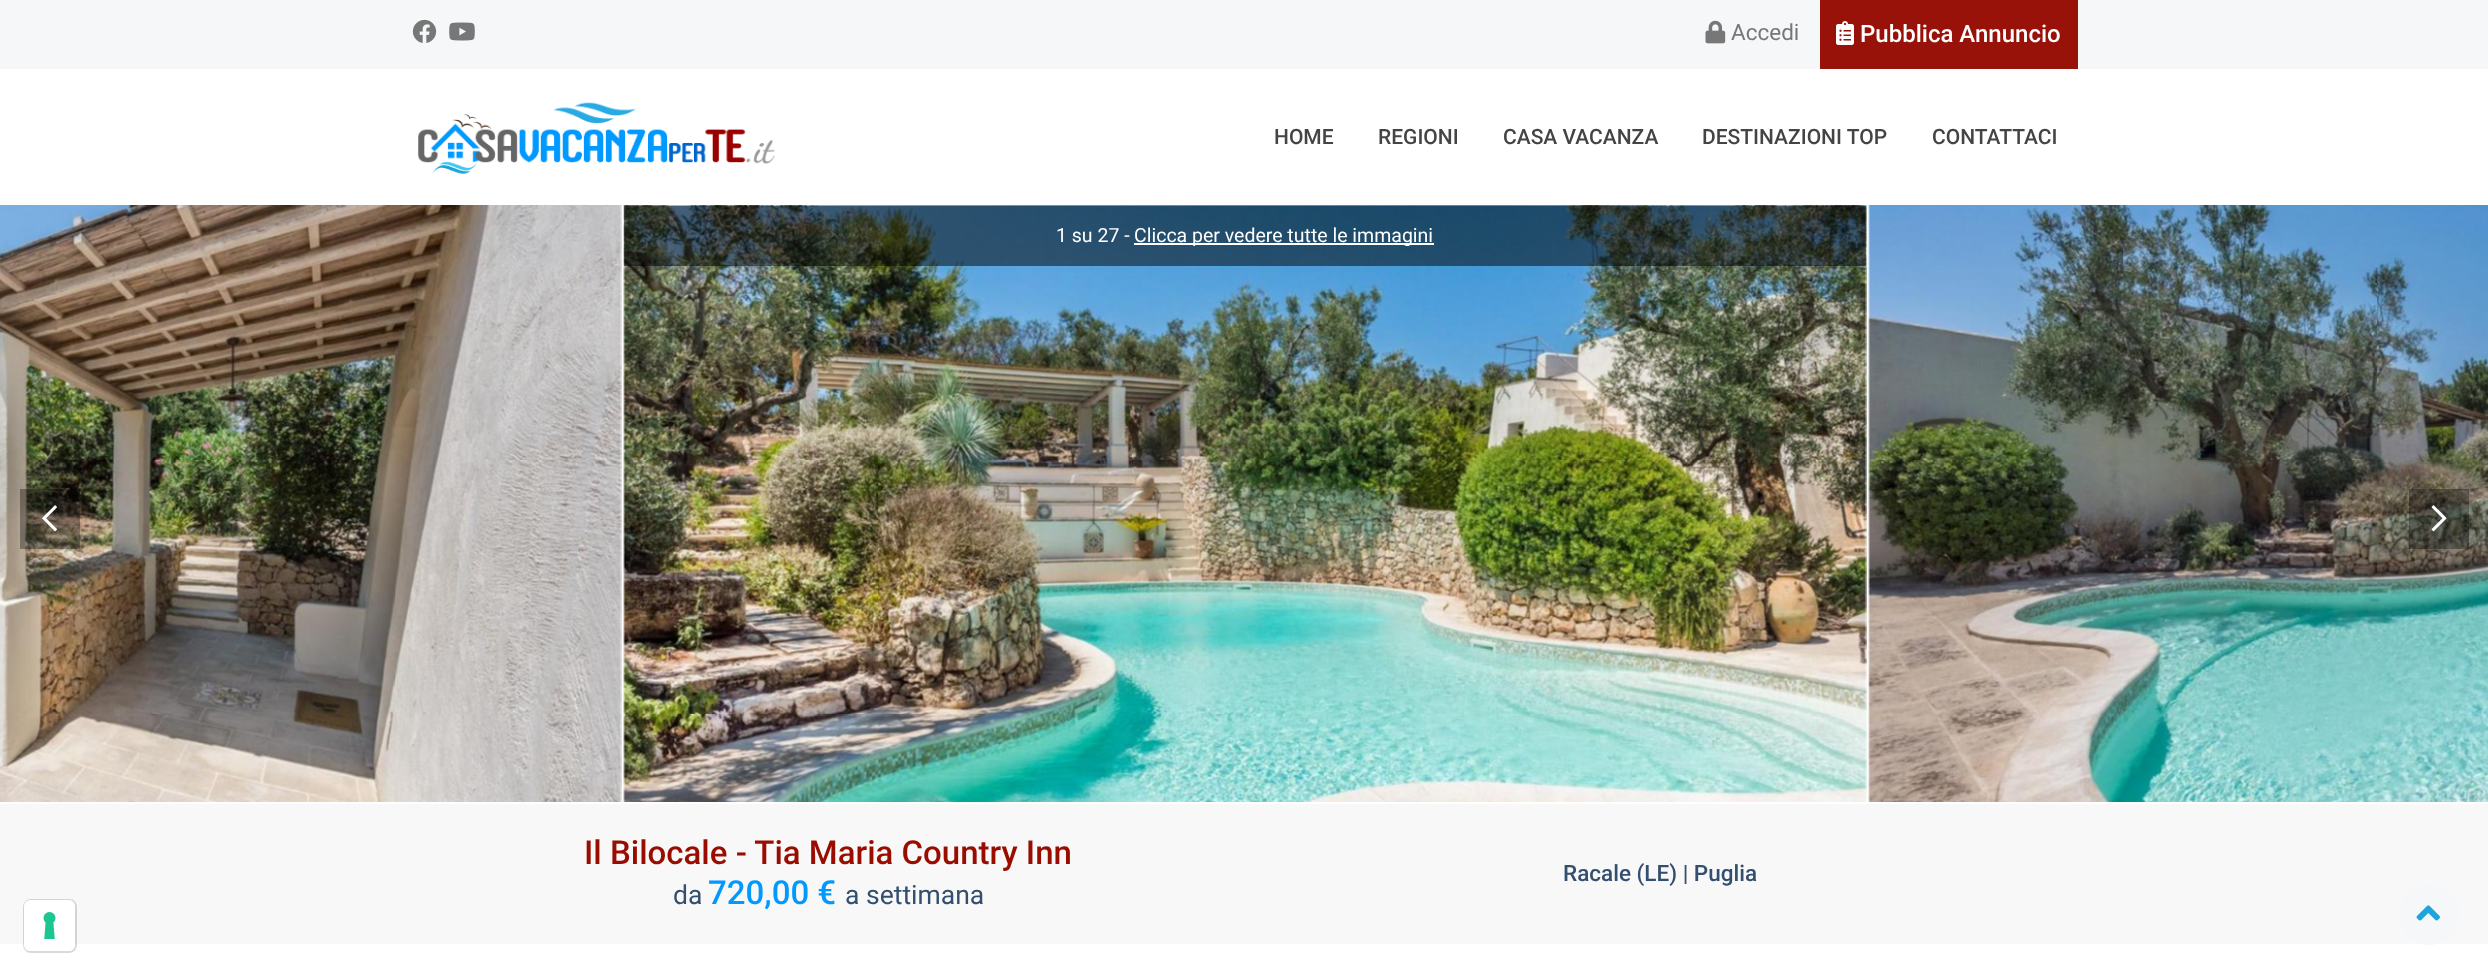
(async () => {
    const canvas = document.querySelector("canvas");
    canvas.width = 2488;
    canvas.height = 975;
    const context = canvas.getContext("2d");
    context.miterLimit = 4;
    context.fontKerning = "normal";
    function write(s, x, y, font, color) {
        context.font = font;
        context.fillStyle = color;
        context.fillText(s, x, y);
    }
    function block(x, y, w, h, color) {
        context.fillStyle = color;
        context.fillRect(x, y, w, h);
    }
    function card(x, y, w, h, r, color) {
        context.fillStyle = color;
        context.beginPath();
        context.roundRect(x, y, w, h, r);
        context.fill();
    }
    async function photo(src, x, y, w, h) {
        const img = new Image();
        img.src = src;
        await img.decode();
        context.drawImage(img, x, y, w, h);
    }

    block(0, 0, 2488, 975, "rgb(255, 255, 255)");
    block(0, 0, 2488, 69, "rgb(245, 247, 249)");
    await photo("media/1.png", 412, 19, 25, 24);
    await photo("media/2.png", 449, 22, 26, 19);
    await photo("media/3.png", 1705, 20, 21, 24);
    write("Accedi", 1731, 40, "22.5px Roboto", "rgb(119, 119, 119)");
    block(1820, 0, 258, 69, "rgb(153, 18, 9)");
    await photo("media/4.png", 1836, 21, 18, 24);
    write("Pubblica Annuncio", 1860, 42, "500 24px Roboto", "rgb(255, 255, 255)");
    await photo("media/5.png", 418, 102, 357, 72);
    write("HOME", 1274, 144, "500 21px Roboto", "rgb(68, 68, 68)");
    write("REGIONI", 1378, 144, "500 21px Roboto", "rgb(68, 68, 68)");
    write("CASA VACANZA", 1503, 144, "500 21px Roboto", "rgb(68, 68, 68)");
    write("DESTINAZIONI TOP", 1702, 144, "500 21px Roboto", "rgb(68, 68, 68)");
    write("CONTATTACI", 1932, 144, "500 21px Roboto", "rgb(68, 68, 68)");
    await photo("media/6.png", 0, 205, 622, 597);
    await photo("media/7.png", 623, 205, 1244, 597);
    block(624, 206, 1242, 60, "rgba(0, 0, 0, 0.5)");
    write("1 su 27 -", 1056, 242, "19.5px Roboto", "rgb(255, 255, 255)");
    block(1134, 243, 300, 2, "rgb(255, 255, 255)");
    write("Clicca per vedere tutte le immagini", 1134, 242, "19.5px Roboto", "rgb(255, 255, 255)");
    await photo("media/8.png", 1868, 205, 620, 597);
    block(20, 489, 60, 60, "rgba(0, 0, 0, 0.33)");
    await photo("media/9.png", 42, 505, 15, 27);
    block(2409, 489, 60, 60, "rgba(0, 0, 0, 0.33)");
    await photo("media/10.png", 2431, 505, 16, 27);
    block(0, 804, 2488, 140, "rgb(248, 248, 248)");
    context.beginPath();
    context.roundRect(24, 900, 52, 52, 7);
    context.strokeStyle = "rgba(0, 0, 0, 0.15)";
    context.lineWidth = 2;
    context.stroke();
    card(24, 900, 51, 51, 6, "rgb(255, 255, 255)");
    await photo("media/11.png", 43, 912, 13, 27);
    write("Il Bilocale - Tia Maria Country Inn", 584, 864, "500 33px Roboto", "rgb(153, 13, 0)");
    write("da", 673, 904, "26.5px Roboto", "rgb(51, 78, 111)");
    write("720,00 €", 708, 904, "500 33px Roboto", "rgb(2, 153, 255)");
    write("a settimana", 845, 904, "26.5px Roboto", "rgb(51, 78, 111)");
    write("Racale (LE) | Puglia", 1563, 881, "500 22.5px Roboto", "rgb(51, 78, 111)");
    context.fillStyle = "rgb(245, 247, 249)";
    context.beginPath();
    context.arc(2429, 915, 30, 0, Math.PI * 2);
    context.fill();
    await photo("media/12.png", 2416, 905, 24, 16);
})();
